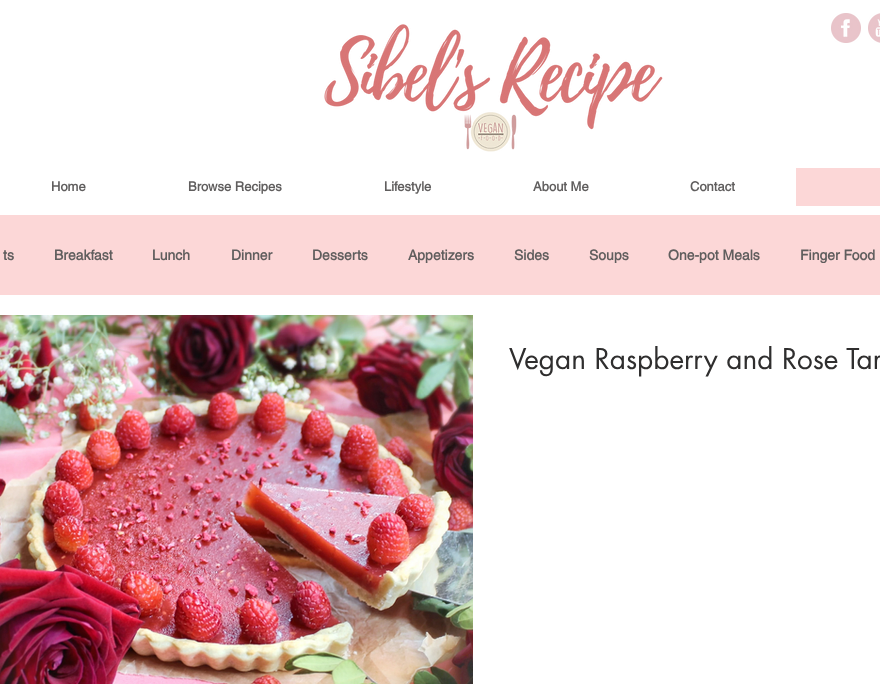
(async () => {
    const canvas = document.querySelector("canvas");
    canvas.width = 880;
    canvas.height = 684;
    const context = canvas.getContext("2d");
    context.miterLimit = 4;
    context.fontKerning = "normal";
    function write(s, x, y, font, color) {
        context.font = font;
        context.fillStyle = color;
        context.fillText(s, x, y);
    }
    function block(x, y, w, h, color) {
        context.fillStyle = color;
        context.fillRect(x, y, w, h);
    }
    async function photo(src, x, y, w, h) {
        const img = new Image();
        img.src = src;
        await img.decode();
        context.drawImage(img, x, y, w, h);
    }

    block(0, 0, 880, 684, "rgb(255, 255, 255)");
    await photo("media/1.png", 324, 24, 339, 128);
    await photo("media/2.png", 831, 13, 30, 30);
    await photo("media/3.png", 868, 13, 12, 30);
    write("Home", 51, 191, "bold 13px helvetica", "rgb(96, 94, 94)");
    write("Browse Recipes", 188, 191, "bold 13px helvetica", "rgb(96, 94, 94)");
    write("Lifestyle", 384, 191, "bold 13px helvetica", "rgb(96, 94, 94)");
    write("About Me", 533, 191, "bold 13px helvetica", "rgb(96, 94, 94)");
    write("Contact", 690, 191, "bold 13px helvetica", "rgb(96, 94, 94)");
    block(796, 168, 84, 38, "rgb(252, 215, 215)");
    block(0, 215, 880, 80, "rgb(252, 215, 215)");
    write("ts", 3, 260, "bold 14px helvetica", "rgb(96, 94, 94)");
    write("Breakfast", 54, 260, "bold 14px helvetica", "rgb(96, 94, 94)");
    write("Lunch", 152, 260, "bold 14px helvetica", "rgb(96, 94, 94)");
    write("Dinner", 231, 260, "bold 14px helvetica", "rgb(96, 94, 94)");
    write("Desserts", 312, 260, "bold 14px helvetica", "rgb(96, 94, 94)");
    write("Appetizers", 408, 260, "bold 14px helvetica", "rgb(96, 94, 94)");
    write("Sides", 514, 260, "bold 14px helvetica", "rgb(96, 94, 94)");
    write("Soups", 589, 260, "bold 14px helvetica", "rgb(96, 94, 94)");
    write("One-pot Meals", 668, 260, "bold 14px helvetica", "rgb(96, 94, 94)");
    write("Finger Food", 800, 260, "bold 14px helvetica", "rgb(96, 94, 94)");
    await photo("media/4.png", 0, 315, 473, 369);
    write("Vegan Raspberry and Rose Tar", 509, 369, "28px futura", "rgb(47, 46, 46)");
})();
